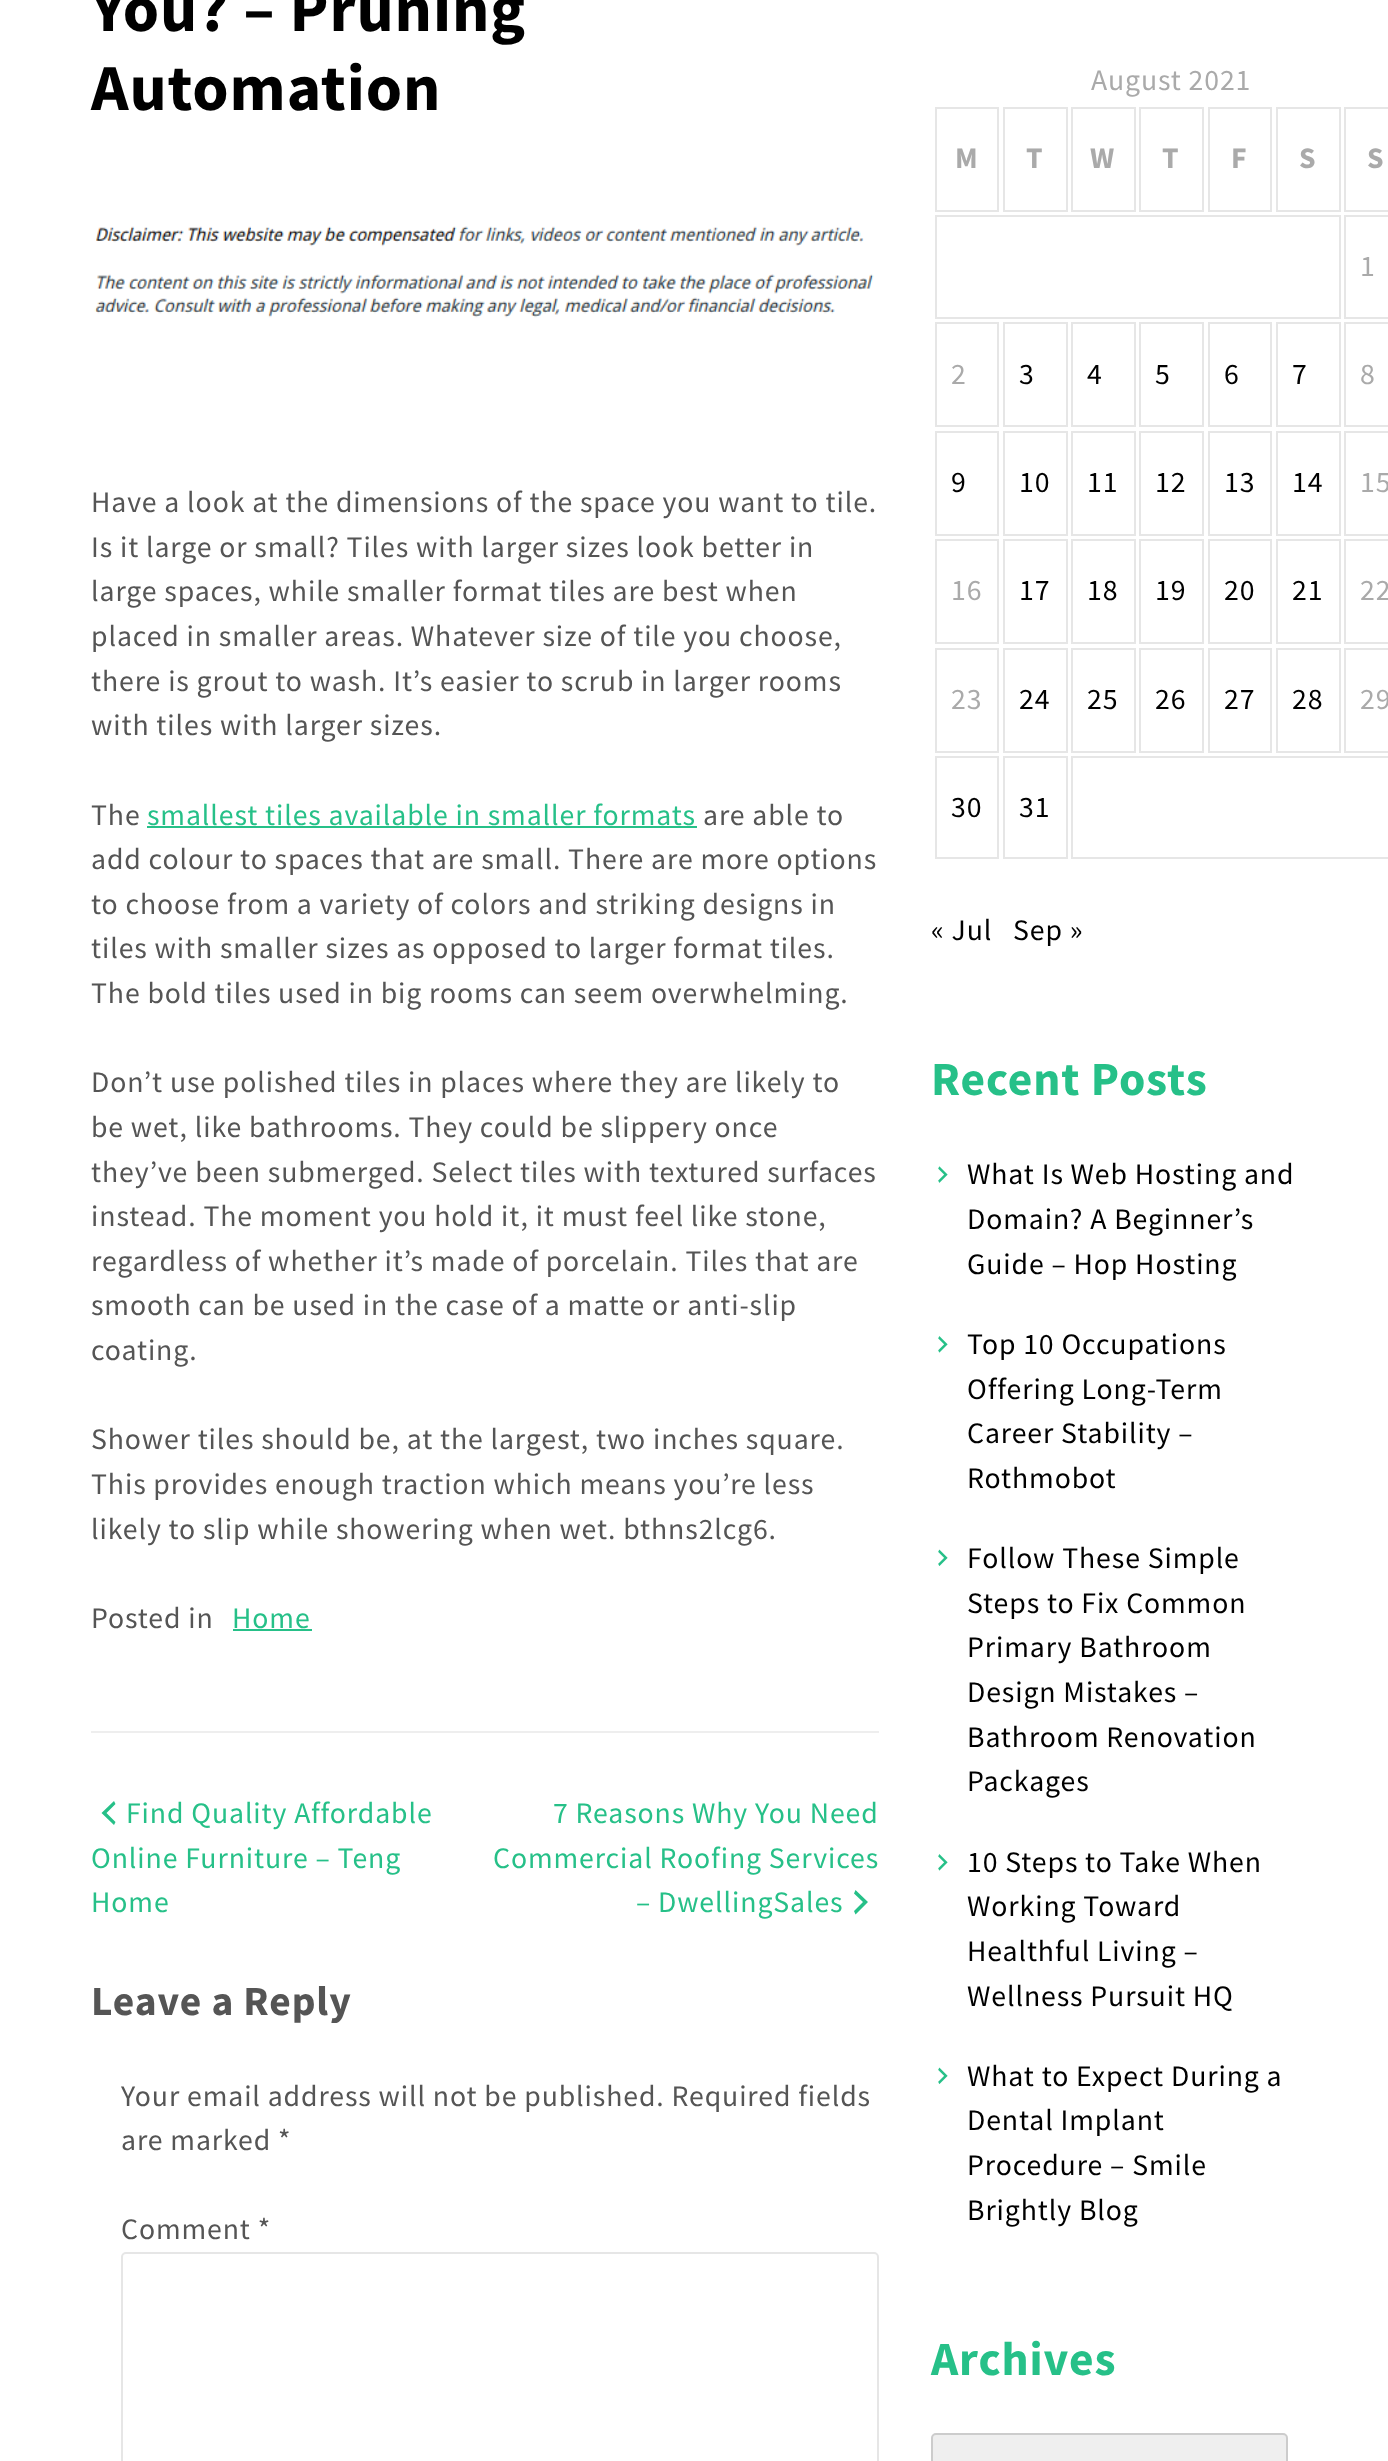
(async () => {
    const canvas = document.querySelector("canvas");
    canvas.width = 1388;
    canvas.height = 2461;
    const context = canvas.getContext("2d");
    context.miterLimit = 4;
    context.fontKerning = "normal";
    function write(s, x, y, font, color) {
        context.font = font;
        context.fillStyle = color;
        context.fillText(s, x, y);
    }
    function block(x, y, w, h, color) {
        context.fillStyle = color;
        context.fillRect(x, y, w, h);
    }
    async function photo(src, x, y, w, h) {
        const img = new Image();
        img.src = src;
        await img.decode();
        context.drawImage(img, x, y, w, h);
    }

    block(0, 0, 1388, 2461, "rgb(255, 255, 255)");
    block(91, 1731, 788, 2, "rgb(238, 238, 238)");
    context.letterSpacing = "0.9px";
    write("You? – Pruning", 91, 31, "bold 65.5px Source Sans Pro", "rgb(0, 0, 0)");
    write("Automation", 91, 110, "bold 65.5px Source Sans Pro", "rgb(0, 0, 0)");
    await photo("media/1.png", 94, 226, 780, 92);
    write("Have a look at the dimensions of the space you want to tile.", 91, 512, "29.75px Source Sans Pro", "rgb(85, 85, 85)");
    write("Is it large or small? Tiles with larger sizes look better in", 91, 557, "29.75px Source Sans Pro", "rgb(85, 85, 85)");
    write("large spaces, while smaller format tiles are best when", 91, 601, "29.75px Source Sans Pro", "rgb(85, 85, 85)");
    write("placed in smaller areas. Whatever size of tile you choose,", 91, 646, "29.75px Source Sans Pro", "rgb(85, 85, 85)");
    write("there is grout to wash. It’s easier to scrub in larger rooms", 91, 691, "29.75px Source Sans Pro", "rgb(85, 85, 85)");
    write("with tiles with larger sizes.", 91, 735, "29.75px Source Sans Pro", "rgb(85, 85, 85)");
    write("The", 91, 825, "29.75px Source Sans Pro", "rgb(85, 85, 85)");
    write("smallest tiles available in smaller formats", 147, 825, "29.75px Source Sans Pro", "rgb(38, 192, 136)");
    block(147, 826, 550, 2, "rgb(38, 192, 136)");
    write("are able to", 703, 825, "29.75px Source Sans Pro", "rgb(85, 85, 85)");
    write("add colour to spaces that are small. There are more options", 91, 869, "29.75px Source Sans Pro", "rgb(85, 85, 85)");
    write("to choose from a variety of colors and striking designs in", 91, 914, "29.75px Source Sans Pro", "rgb(85, 85, 85)");
    write("tiles with smaller sizes as opposed to larger format tiles.", 91, 958, "29.75px Source Sans Pro", "rgb(85, 85, 85)");
    write("The bold tiles used in big rooms can seem overwhelming.", 91, 1003, "29.75px Source Sans Pro", "rgb(85, 85, 85)");
    write("Don’t use polished tiles in places where they are likely to", 91, 1092, "29.75px Source Sans Pro", "rgb(85, 85, 85)");
    write("be wet, like bathrooms. They could be slippery once", 91, 1137, "29.75px Source Sans Pro", "rgb(85, 85, 85)");
    write("they’ve been submerged. Select tiles with textured surfaces", 91, 1182, "29.75px Source Sans Pro", "rgb(85, 85, 85)");
    write("instead. The moment you hold it, it must feel like stone,", 91, 1226, "29.75px Source Sans Pro", "rgb(85, 85, 85)");
    write("regardless of whether it’s made of porcelain. Tiles that are", 91, 1271, "29.75px Source Sans Pro", "rgb(85, 85, 85)");
    write("smooth can be used in the case of a matte or anti-slip", 91, 1315, "29.75px Source Sans Pro", "rgb(85, 85, 85)");
    write("coating.", 91, 1360, "29.75px Source Sans Pro", "rgb(85, 85, 85)");
    write("Shower tiles should be, at the largest, two inches square.", 91, 1449, "29.75px Source Sans Pro", "rgb(85, 85, 85)");
    write("This provides enough traction which means you’re less", 91, 1494, "29.75px Source Sans Pro", "rgb(85, 85, 85)");
    write("likely to slip while showering when wet. bthns2lcg6.", 91, 1539, "29.75px Source Sans Pro", "rgb(85, 85, 85)");
    write("Posted in", 91, 1628, "29.75px Source Sans Pro", "rgb(85, 85, 85)");
    write("Home", 232, 1628, "29.75px Source Sans Pro", "rgb(38, 192, 136)");
    block(233, 1629, 79, 2, "rgb(38, 192, 136)");
    context.beginPath();
    context.moveTo(115.5, 1804);
    context.lineTo(106.5, 1813);
    context.lineTo(115.5, 1822);
    context.lineTo(114, 1825);
    context.lineTo(101.5, 1813);
    context.lineTo(114, 1801);
    context.closePath();
    context.fill();
    write("Find Quality Affordable", 126, 1823, "29.75px Source Sans Pro", "rgb(38, 192, 136)");
    write("Online Furniture – Teng", 91, 1868, "29.75px Source Sans Pro", "rgb(38, 192, 136)");
    write("Home", 91, 1912, "29.75px Source Sans Pro", "rgb(38, 192, 136)");
    write("7 Reasons Why You Need", 553, 1823, "29.75px Source Sans Pro", "rgb(38, 192, 136)");
    write("Commercial Roofing Services", 493, 1868, "29.75px Source Sans Pro", "rgb(38, 192, 136)");
    write("– DwellingSales", 636, 1912, "29.75px Source Sans Pro", "rgb(38, 192, 136)");
    context.beginPath();
    context.moveTo(854, 1911);
    context.lineTo(863, 1902);
    context.lineTo(854, 1893.5);
    context.lineTo(855.5, 1890);
    context.lineTo(868, 1902);
    context.lineTo(855.5, 1914.5);
    context.closePath();
    context.fill();
    write("Leave a Reply", 91, 2015, "bold 41.5px Source Sans Pro", "rgb(85, 85, 85)");
    write("Your email address will not be published. Required fields", 121, 2106, "29.75px Source Sans Pro", "rgb(85, 85, 85)");
    write("are marked *", 121, 2150, "29.75px Source Sans Pro", "rgb(85, 85, 85)");
    write("Comment *", 121, 2239, "29.75px Source Sans Pro", "rgb(85, 85, 85)");
    context.beginPath();
    context.roundRect(122, 2253, 756, 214, 4);
    context.strokeStyle = "rgb(230, 230, 230)";
    context.lineWidth = 2;
    context.stroke();
    write("August 2021", 1091, 90, "29.75px Source Sans Pro", "rgb(170, 170, 170)");
    context.strokeRect(936, 108, 62, 103);
    write("M", 955, 168, "bold 29.75px Source Sans Pro", "rgb(170, 170, 170)");
    context.strokeRect(1004, 108, 63, 103);
    write("T", 1026, 168, "bold 29.75px Source Sans Pro", "rgb(170, 170, 170)");
    context.strokeRect(1072, 108, 63, 103);
    write("W", 1090, 168, "bold 29.75px Source Sans Pro", "rgb(170, 170, 170)");
    context.strokeRect(1140, 108, 63, 103);
    write("T", 1162, 168, "bold 29.75px Source Sans Pro", "rgb(170, 170, 170)");
    context.strokeRect(1209, 108, 62, 103);
    write("F", 1231, 168, "bold 29.75px Source Sans Pro", "rgb(170, 170, 170)");
    context.strokeRect(1277, 108, 63, 103);
    write("S", 1299, 168, "bold 29.75px Source Sans Pro", "rgb(170, 170, 170)");
    context.strokeRect(1345, 108, 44, 103);
    write("S", 1367, 168, "bold 29.75px Source Sans Pro", "rgb(170, 170, 170)");
    context.strokeRect(936, 216, 404, 102);
    context.strokeRect(1345, 216, 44, 102);
    write("1", 1360, 276, "29.75px Source Sans Pro", "rgb(170, 170, 170)");
    context.strokeRect(936, 323, 62, 103);
    write("2", 951, 384, "29.75px Source Sans Pro", "rgb(170, 170, 170)");
    context.strokeRect(1004, 323, 63, 103);
    write("3", 1019, 384, "29.75px Source Sans Pro", "rgb(0, 0, 0)");
    context.strokeRect(1072, 323, 63, 103);
    write("4", 1087, 384, "29.75px Source Sans Pro", "rgb(0, 0, 0)");
    context.strokeRect(1140, 323, 63, 103);
    write("5", 1155, 384, "29.75px Source Sans Pro", "rgb(0, 0, 0)");
    context.strokeRect(1209, 323, 62, 103);
    write("6", 1224, 384, "29.75px Source Sans Pro", "rgb(0, 0, 0)");
    context.strokeRect(1277, 323, 63, 103);
    write("7", 1292, 384, "29.75px Source Sans Pro", "rgb(0, 0, 0)");
    context.strokeRect(1345, 323, 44, 103);
    write("8", 1360, 384, "29.75px Source Sans Pro", "rgb(170, 170, 170)");
    context.strokeRect(936, 432, 62, 103);
    write("9", 951, 492, "29.75px Source Sans Pro", "rgb(0, 0, 0)");
    context.strokeRect(1004, 432, 63, 103);
    write("10", 1019, 492, "29.75px Source Sans Pro", "rgb(0, 0, 0)");
    context.strokeRect(1072, 432, 63, 103);
    write("11", 1087, 492, "29.75px Source Sans Pro", "rgb(0, 0, 0)");
    context.strokeRect(1140, 432, 63, 103);
    write("12", 1155, 492, "29.75px Source Sans Pro", "rgb(0, 0, 0)");
    context.strokeRect(1209, 432, 62, 103);
    write("13", 1224, 492, "29.75px Source Sans Pro", "rgb(0, 0, 0)");
    context.strokeRect(1277, 432, 63, 103);
    write("14", 1292, 492, "29.75px Source Sans Pro", "rgb(0, 0, 0)");
    context.strokeRect(1345, 432, 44, 103);
    write("15", 1360, 492, "29.75px Source Sans Pro", "rgb(170, 170, 170)");
    context.strokeRect(936, 540, 62, 103);
    write("16", 951, 600, "29.75px Source Sans Pro", "rgb(170, 170, 170)");
    context.strokeRect(1004, 540, 63, 103);
    write("17", 1019, 600, "29.75px Source Sans Pro", "rgb(0, 0, 0)");
    context.strokeRect(1072, 540, 63, 103);
    write("18", 1087, 600, "29.75px Source Sans Pro", "rgb(0, 0, 0)");
    context.strokeRect(1140, 540, 63, 103);
    write("19", 1155, 600, "29.75px Source Sans Pro", "rgb(0, 0, 0)");
    context.strokeRect(1209, 540, 62, 103);
    write("20", 1224, 600, "29.75px Source Sans Pro", "rgb(0, 0, 0)");
    context.strokeRect(1277, 540, 63, 103);
    write("21", 1292, 600, "29.75px Source Sans Pro", "rgb(0, 0, 0)");
    context.strokeRect(1345, 540, 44, 103);
    write("22", 1360, 600, "29.75px Source Sans Pro", "rgb(170, 170, 170)");
    context.strokeRect(936, 649, 62, 103);
    write("23", 951, 709, "29.75px Source Sans Pro", "rgb(170, 170, 170)");
    context.strokeRect(1004, 649, 63, 103);
    write("24", 1019, 709, "29.75px Source Sans Pro", "rgb(0, 0, 0)");
    context.strokeRect(1072, 649, 63, 103);
    write("25", 1087, 709, "29.75px Source Sans Pro", "rgb(0, 0, 0)");
    context.strokeRect(1140, 649, 63, 103);
    write("26", 1155, 709, "29.75px Source Sans Pro", "rgb(0, 0, 0)");
    context.strokeRect(1209, 649, 62, 103);
    write("27", 1224, 709, "29.75px Source Sans Pro", "rgb(0, 0, 0)");
    context.strokeRect(1277, 649, 63, 103);
    write("28", 1292, 709, "29.75px Source Sans Pro", "rgb(0, 0, 0)");
    context.strokeRect(1345, 649, 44, 103);
    write("29", 1360, 709, "29.75px Source Sans Pro", "rgb(170, 170, 170)");
    context.strokeRect(936, 757, 62, 101);
    write("30", 951, 817, "29.75px Source Sans Pro", "rgb(0, 0, 0)");
    context.strokeRect(1004, 757, 63, 101);
    write("31", 1019, 817, "29.75px Source Sans Pro", "rgb(0, 0, 0)");
    context.strokeRect(1072, 757, 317, 101);
    write("« Jul", 931, 940, "29.75px Source Sans Pro", "rgb(0, 0, 0)");
    write("Sep »", 1013, 940, "29.75px Source Sans Pro", "rgb(0, 0, 0)");
    write("Recent Posts", 931, 1095, "bold 47.5px Source Sans Pro", "rgb(38, 192, 136)");
    await photo("media/2.png", 938, 1166, 10, 17);
    write("What Is Web Hosting and", 967, 1184, "29.75px Source Sans Pro", "rgb(0, 0, 0)");
    write("Domain? A Beginner’s", 967, 1229, "29.75px Source Sans Pro", "rgb(0, 0, 0)");
    write("Guide – Hop Hosting", 967, 1274, "29.75px Source Sans Pro", "rgb(0, 0, 0)");
    await photo("media/3.png", 938, 1336, 10, 17);
    write("Top 10 Occupations", 967, 1354, "29.75px Source Sans Pro", "rgb(0, 0, 0)");
    write("Offering Long-Term", 967, 1399, "29.75px Source Sans Pro", "rgb(0, 0, 0)");
    write("Career Stability –", 967, 1443, "29.75px Source Sans Pro", "rgb(0, 0, 0)");
    write("Rothmobot", 967, 1488, "29.75px Source Sans Pro", "rgb(0, 0, 0)");
    await photo("media/4.png", 938, 1549, 10, 17);
    write("Follow These Simple", 967, 1568, "29.75px Source Sans Pro", "rgb(0, 0, 0)");
    write("Steps to Fix Common", 967, 1613, "29.75px Source Sans Pro", "rgb(0, 0, 0)");
    write("Primary Bathroom", 967, 1657, "29.75px Source Sans Pro", "rgb(0, 0, 0)");
    write("Design Mistakes –", 967, 1702, "29.75px Source Sans Pro", "rgb(0, 0, 0)");
    write("Bathroom Renovation", 967, 1747, "29.75px Source Sans Pro", "rgb(0, 0, 0)");
    write("Packages", 967, 1791, "29.75px Source Sans Pro", "rgb(0, 0, 0)");
    await photo("media/3.png", 938, 1854, 10, 17);
    write("10 Steps to Take When", 967, 1872, "29.75px Source Sans Pro", "rgb(0, 0, 0)");
    write("Working Toward", 967, 1916, "29.75px Source Sans Pro", "rgb(0, 0, 0)");
    write("Healthful Living –", 967, 1961, "29.75px Source Sans Pro", "rgb(0, 0, 0)");
    write("Wellness Pursuit HQ", 967, 2006, "29.75px Source Sans Pro", "rgb(0, 0, 0)");
    await photo("media/4.png", 938, 2067, 10, 17);
    write("What to Expect During a", 967, 2086, "29.75px Source Sans Pro", "rgb(0, 0, 0)");
    write("Dental Implant", 967, 2130, "29.75px Source Sans Pro", "rgb(0, 0, 0)");
    write("Procedure – Smile", 967, 2175, "29.75px Source Sans Pro", "rgb(0, 0, 0)");
    write("Brightly Blog", 967, 2220, "29.75px Source Sans Pro", "rgb(0, 0, 0)");
    write("Archives", 931, 2375, "bold 47.5px Source Sans Pro", "rgb(38, 192, 136)");
    context.fillStyle = "rgb(239, 239, 239)";
    context.beginPath();
    context.roundRect(932, 2434, 355, 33, 4);
    context.fill();
    context.strokeStyle = "rgb(204, 204, 204)";
    context.stroke();
})();
